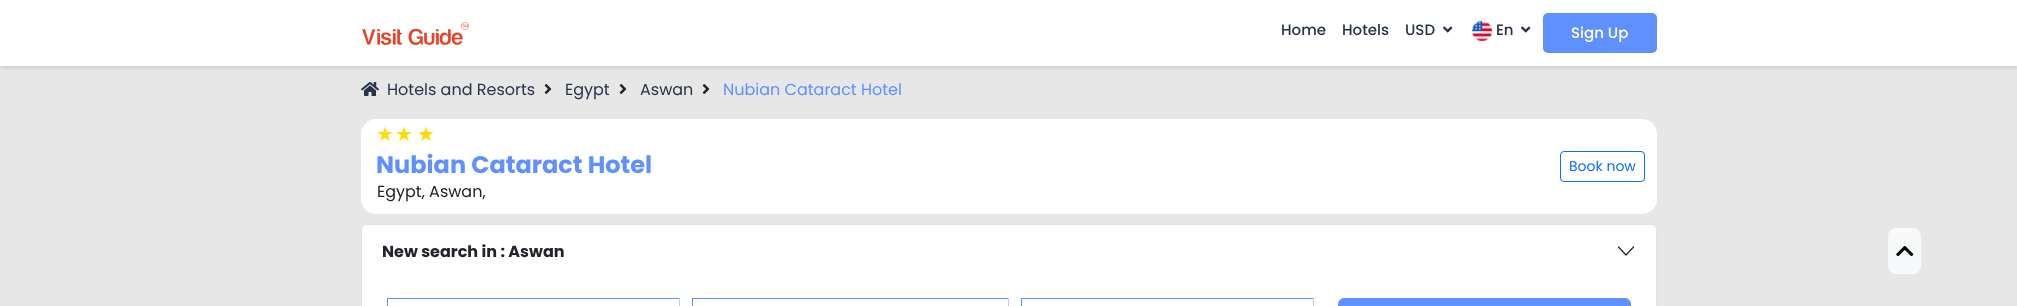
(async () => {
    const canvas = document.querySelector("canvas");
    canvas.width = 2017;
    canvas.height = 306;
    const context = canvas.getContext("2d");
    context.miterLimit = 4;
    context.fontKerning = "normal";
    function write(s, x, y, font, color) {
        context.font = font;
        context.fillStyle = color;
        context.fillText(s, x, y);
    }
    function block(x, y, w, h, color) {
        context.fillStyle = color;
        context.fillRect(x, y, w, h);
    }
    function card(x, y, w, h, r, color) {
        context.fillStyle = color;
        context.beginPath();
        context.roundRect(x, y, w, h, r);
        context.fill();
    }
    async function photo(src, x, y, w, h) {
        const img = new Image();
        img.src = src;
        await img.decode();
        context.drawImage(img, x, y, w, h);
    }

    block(0, 0, 2017, 306, "rgb(231, 231, 231)");
    context.fillStyle = "rgba(0, 0, 0, 0.16)";
    context.filter = "blur(2.5px)";
    context.beginPath();
    context.rect(0, 1, 2017, 66);
    context.fill();
    context.filter = "none";
    block(0, 0, 2017, 66, "rgb(255, 255, 255)");
    await photo("media/1.png", 362, 22, 107, 23);
    write("Home", 1281, 35, "500 15px Poppins", "rgb(41, 51, 71)");
    write("Hotels", 1342, 35, "500 15px Poppins", "rgb(41, 51, 71)");
    write("USD", 1405, 35, "500 15px Poppins", "rgb(41, 51, 71)");
    await photo("media/2.png", 1443, 26, 10, 7);
    await photo("media/3.png", 1471, 20, 21, 21);
    write("En", 1496, 35, "500 15px Poppins", "rgb(41, 51, 71)");
    await photo("media/2.png", 1521, 26, 10, 7);
    card(1543, 13, 114, 40, 5, "rgb(94, 145, 255)");
    write("Sign Up", 1571, 38, "500 15px Poppins", "rgb(255, 255, 255)");
    await photo("media/4.png", 361, 82, 18, 14);
    write("Hotels and Resorts", 387, 95, "16px Poppins", "rgb(41, 51, 71)");
    await photo("media/5.png", 544, 84, 8, 10);
    write("Egypt", 565, 95, "16px Poppins", "rgb(41, 51, 71)");
    await photo("media/5.png", 619, 84, 8, 10);
    write("Aswan", 640, 95, "16px Poppins", "rgb(41, 51, 71)");
    await photo("media/5.png", 702, 84, 8, 10);
    write("Nubian Cataract Hotel", 723, 95, "16px Poppins", "rgb(94, 145, 255)");
    card(361, 119, 1296, 95, 15, "rgb(255, 255, 255)");
    write("★", 376, 141, "20px DejaVu Sans", "rgb(255, 220, 0)");
    write("★", 395, 141, "20px DejaVu Sans", "rgb(255, 220, 0)");
    write("★", 417, 141, "20px DejaVu Sans", "rgb(255, 220, 0)");
    write("Nubian Cataract Hotel", 376, 173, "bold 24px Poppins", "rgb(94, 145, 255)");
    write("Egypt, Aswan,", 377, 197, "16px Poppins", "rgb(33, 37, 41)");
    context.beginPath();
    context.roundRect(1560.5, 151.5, 84, 30, 3.5);
    context.strokeStyle = "rgb(13, 110, 253)";
    context.stroke();
    write("Book now", 1569, 171, "14px Poppins", "rgb(13, 110, 253)");
    context.fillStyle = "rgb(255, 255, 255)";
    context.beginPath();
    context.roundRect(361.5, 224.5, 1295, 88, 5.5);
    context.fill();
    context.strokeStyle = "rgb(222, 226, 230)";
    context.stroke();
    card(362, 225, 1294, 52, 5, "rgb(255, 255, 255)");
    write("New search in : Aswan", 382, 257, "bold 16px Poppins", "rgb(33, 37, 41)");
    context.beginPath();
    context.moveTo(1618.5, 247);
    context.lineTo(1626, 255);
    context.lineTo(1633.5, 247);
    context.strokeStyle = "rgb(33, 37, 41)";
    context.lineWidth = 1.2;
    context.lineCap = "round";
    context.lineJoin = "round";
    context.stroke();
    block(387, 298, 293, 1, "rgb(94, 145, 255)");
    block(679, 298, 1, 8, "rgb(204, 204, 204)");
    block(387, 298, 1, 8, "rgb(94, 145, 255)");
    block(692, 298, 317, 1, "rgb(94, 145, 255)");
    block(1008, 298, 1, 8, "rgb(204, 204, 204)");
    block(692, 298, 1, 8, "rgb(94, 145, 255)");
    block(1021, 298, 293, 1, "rgb(94, 145, 255)");
    block(1313, 298, 1, 8, "rgb(204, 204, 204)");
    block(1021, 298, 1, 8, "rgb(94, 145, 255)");
    context.beginPath();
    context.roundRect(1338.5, 298.5, 292, 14, 5.5);
    context.fill();
    context.strokeStyle = "rgb(94, 145, 255)";
    context.lineWidth = 1;
    context.lineJoin = "miter";
    context.stroke();
    card(1888, 228, 33, 46, 8, "rgb(248, 249, 250)");
    await photo("media/6.png", 1896, 245, 18, 12);
})();
